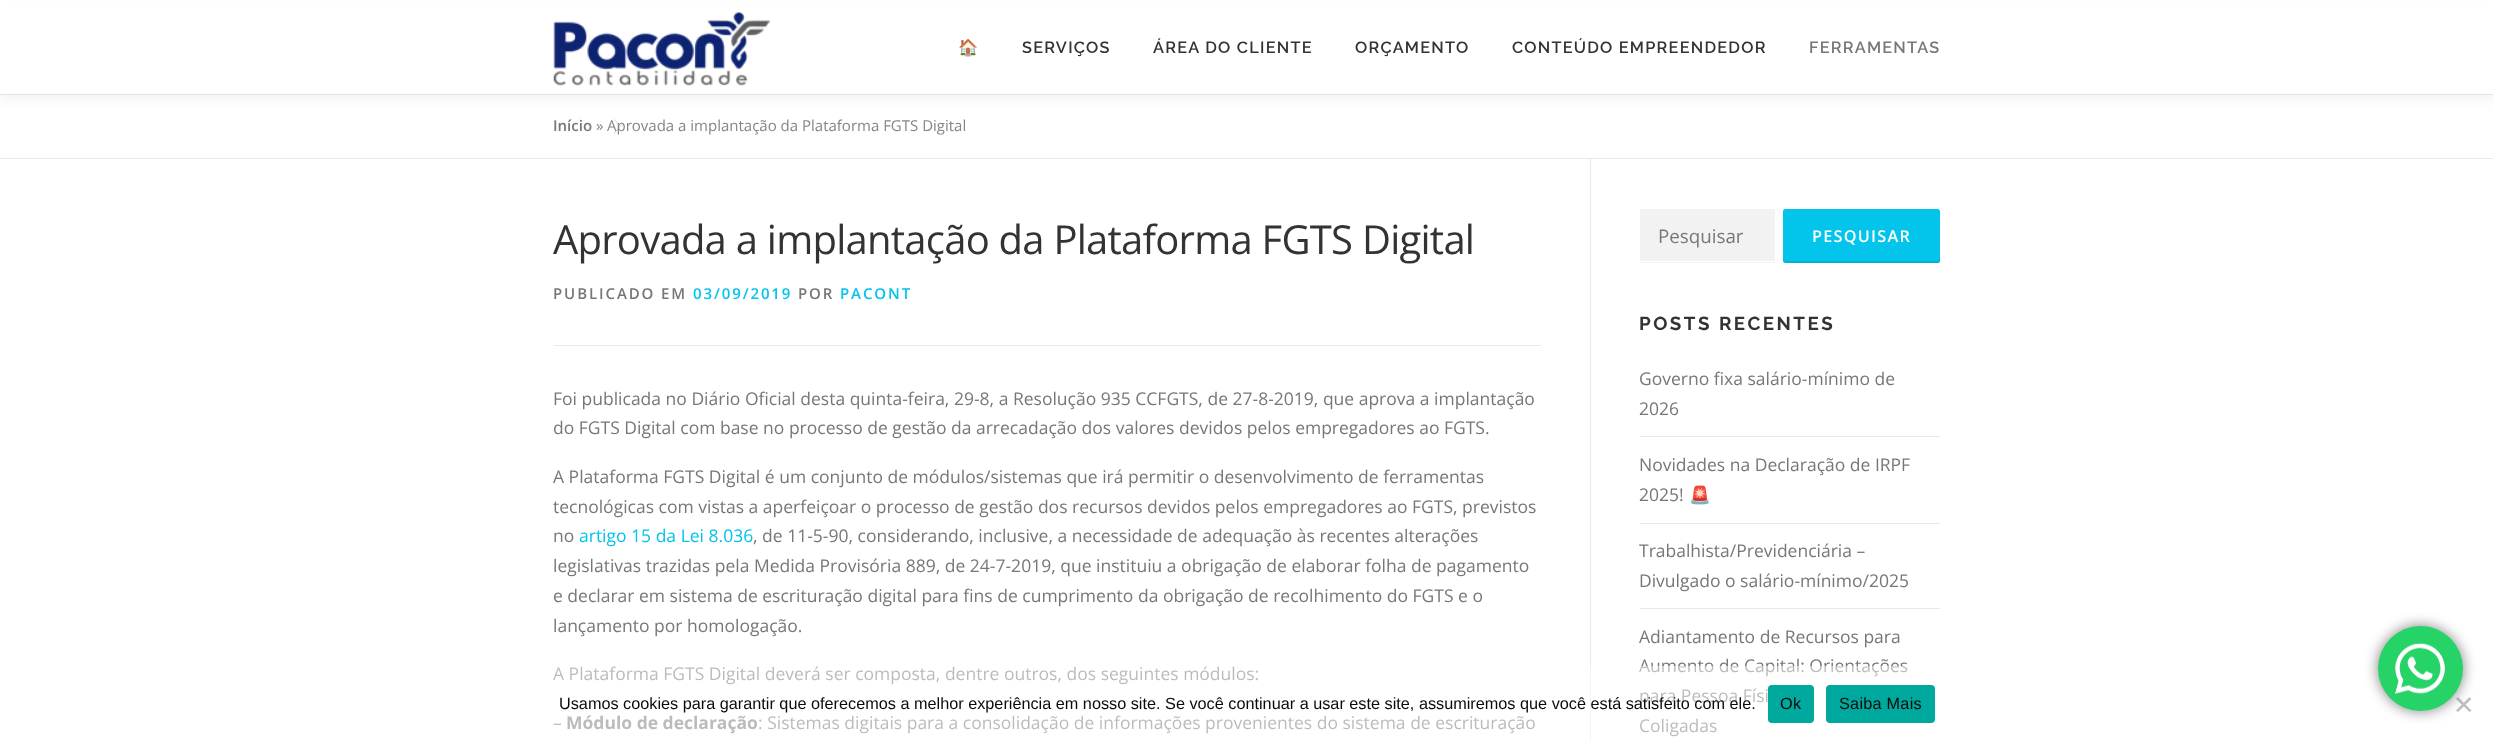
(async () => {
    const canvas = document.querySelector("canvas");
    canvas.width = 2493;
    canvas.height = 742;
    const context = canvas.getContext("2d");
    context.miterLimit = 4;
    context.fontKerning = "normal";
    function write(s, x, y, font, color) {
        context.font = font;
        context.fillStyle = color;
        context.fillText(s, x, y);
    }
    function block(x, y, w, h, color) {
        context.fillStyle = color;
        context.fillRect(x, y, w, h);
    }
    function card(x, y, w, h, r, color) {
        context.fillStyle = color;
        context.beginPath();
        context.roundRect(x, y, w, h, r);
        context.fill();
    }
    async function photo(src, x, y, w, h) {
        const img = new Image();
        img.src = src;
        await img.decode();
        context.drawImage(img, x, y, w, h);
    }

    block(0, 0, 2493, 742, "rgb(255, 255, 255)");
    block(0, 94, 2493, 1, "rgb(233, 233, 233)");
    context.fillStyle = "rgba(50, 50, 50, 0.06)";
    context.filter = "blur(6px)";
    context.beginPath();
    context.rect(0, 6, 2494, 94);
    context.fill();
    context.filter = "none";
    block(0, 1, 2493, 93, "rgb(255, 255, 255)");
    await photo("media/1.png", 553, 12, 218, 74);
    context.letterSpacing = "1.25px";
    write("🏠", 958, 53, "bold 16.25px Noto Color Emoji", "rgb(51, 51, 51)");
    write("SERVIÇOS", 1022, 53, "600 16.25px Raleway", "rgb(51, 51, 51)");
    write("ÁREA DO CLIENTE", 1153, 53, "600 16.25px Raleway", "rgb(51, 51, 51)");
    write("ORÇAMENTO", 1355, 53, "600 16.25px Raleway", "rgb(51, 51, 51)");
    write("CONTEÚDO EMPREENDEDOR", 1512, 53, "600 16.25px Raleway", "rgb(51, 51, 51)");
    write("FERRAMENTAS", 1809, 53, "600 16.25px Raleway", "rgb(119, 119, 119)");
    block(0, 158, 2493, 1, "rgb(233, 233, 233)");
    context.letterSpacing = "0px";
    write("Início", 553, 131, "600 15px Open Sans", "rgb(119, 119, 119)");
    context.fillStyle = "rgb(204, 204, 204)";
    context.beginPath();
    context.moveTo(614, 134);
    context.lineTo(614, 119);
    context.lineTo(621, 126);
    context.closePath();
    context.fill();
    context.fillStyle = "rgb(255, 255, 255)";
    context.beginPath();
    context.moveTo(614, 132.5);
    context.lineTo(614, 120);
    context.lineTo(620, 126);
    context.closePath();
    context.fill();
    write("»", 596, 131, "15px Open Sans", "rgb(133, 133, 133)");
    write("Aprovada a implantação da Plataforma FGTS Digital", 607, 131, "15px Open Sans", "rgb(133, 133, 133)");
    block(1590, 159, 1, 583, "rgb(233, 233, 233)");
    context.letterSpacing = "-0.75px";
    write("Aprovada a implantação da Plataforma FGTS Digital", 553, 254, "40px Open Sans", "rgb(51, 51, 51)");
    block(554, 345, 987, 1, "rgb(233, 233, 233)");
    context.letterSpacing = "1.9px";
    write("PUBLICADO EM", 553, 299, "600 15px Open Sans", "rgb(119, 119, 119)");
    write("03/09/2019", 693, 299, "600 15px Open Sans", "rgb(3, 196, 235)");
    write("POR", 798, 299, "600 15px Open Sans", "rgb(119, 119, 119)");
    write("PACONT", 840, 299, "600 15px Open Sans", "rgb(3, 196, 235)");
    context.letterSpacing = "0px";
    write("Foi publicada no Diário Oficial desta quinta-feira, 29-8, a Resolução 935 CCFGTS, de 27-8-2019, que aprova a implantação", 553, 405, "17.5px Open Sans", "rgb(119, 119, 119)");
    write("do FGTS Digital com base no processo de gestão da arrecadação dos valores devidos pelos empregadores ao FGTS.", 553, 434, "17.5px Open Sans", "rgb(119, 119, 119)");
    write("A Plataforma FGTS Digital é um conjunto de módulos/sistemas que irá permitir o desenvolvimento de ferramentas", 553, 483, "17.5px Open Sans", "rgb(119, 119, 119)");
    write("tecnológicas com vistas a aperfeiçoar o processo de gestão dos recursos devidos pelos empregadores ao FGTS, previstos", 553, 513, "17.5px Open Sans", "rgb(119, 119, 119)");
    write("no", 553, 542, "17.5px Open Sans", "rgb(119, 119, 119)");
    write("artigo 15 da Lei 8.036", 579, 542, "17.5px Open Sans", "rgb(3, 196, 235)");
    write(", de 11-5-90, considerando, inclusive, a necessidade de adequação às recentes alterações", 753, 542, "17.5px Open Sans", "rgb(119, 119, 119)");
    write("legislativas trazidas pela Medida Provisória 889, de 24-7-2019, que instituiu a obrigação de elaborar folha de pagamento", 553, 572, "17.5px Open Sans", "rgb(119, 119, 119)");
    write("e declarar em sistema de escrituração digital para fins de cumprimento da obrigação de recolhimento do FGTS e o", 553, 602, "17.5px Open Sans", "rgb(119, 119, 119)");
    write("lançamento por homologação.", 553, 632, "17.5px Open Sans", "rgb(119, 119, 119)");
    write("A Plataforma FGTS Digital deverá ser composta, dentre outros, dos seguintes módulos:", 553, 680, "17.5px Open Sans", "rgb(119, 119, 119)");
    write("–", 553, 729, "17.5px Open Sans", "rgb(119, 119, 119)");
    write("Módulo de declaração", 566, 729, "bold 17.5px Open Sans", "rgb(119, 119, 119)");
    write(": Sistemas digitais para a consolidação de informações provenientes do sistema de escrituração", 758, 729, "17.5px Open Sans", "rgb(119, 119, 119)");
    block(1640, 209, 135, 54, "rgb(242, 242, 242)");
    block(1640, 261, 135, 1, "rgb(255, 255, 255)");
    write("Pesquisar", 1658, 243, "18.75px Open Sans", "rgb(119, 119, 119)");
    card(1783, 209, 157, 54, 2.5, "rgb(3, 196, 235)");
    context.fillStyle = "rgba(0, 0, 0, 0.1)";
    context.beginPath();
    context.moveTo(1783, 260);
    context.lineTo(1784, 262);
    context.lineTo(1786, 263);
    context.lineTo(1938, 263);
    context.bezierCurveTo(1940, 263, 1940, 261, 1940, 259);
    context.bezierCurveTo(1940, 260, 1939, 261, 1938, 261);
    context.lineTo(1785, 261);
    context.closePath();
    context.fill();
    context.letterSpacing = "1.25px";
    write("PESQUISAR", 1812, 242, "600 16.25px Open Sans", "rgb(255, 255, 255)");
    context.letterSpacing = "2.5px";
    write("POSTS RECENTES", 1639, 330, "bold 18.75px Raleway", "rgb(51, 51, 51)");
    block(1640, 436, 300, 1, "rgb(233, 233, 233)");
    context.letterSpacing = "0px";
    write("Governo fixa salário-mínimo de", 1639, 385, "17.5px Open Sans", "rgb(119, 119, 119)");
    write("2026", 1639, 415, "17.5px Open Sans", "rgb(119, 119, 119)");
    block(1640, 523, 300, 1, "rgb(233, 233, 233)");
    write("Novidades na Declaração de IRPF", 1639, 471, "17.5px Open Sans", "rgb(119, 119, 119)");
    write("2025!", 1639, 501, "17.5px Open Sans", "rgb(119, 119, 119)");
    write("🚨", 1689, 501, "17.5px Noto Color Emoji", "rgb(119, 119, 119)");
    block(1640, 608, 300, 1, "rgb(233, 233, 233)");
    write("Trabalhista/Previdenciária –", 1639, 557, "17.5px Open Sans", "rgb(119, 119, 119)");
    write("Divulgado o salário-mínimo/2025", 1639, 587, "17.5px Open Sans", "rgb(119, 119, 119)");
    write("Adiantamento de Recursos para", 1639, 643, "17.5px Open Sans", "rgb(119, 119, 119)");
    write("Aumento de Capital: Orientações", 1639, 672, "17.5px Open Sans", "rgb(119, 119, 119)");
    write("para Pessoa Físi", 1639, 702, "17.5px Open Sans", "rgb(119, 119, 119)");
    write("Coligadas", 1639, 732, "17.5px Open Sans", "rgb(119, 119, 119)");
    context.fillStyle = "rgb(192, 192, 192)";
    context.beginPath();
    context.moveTo(2469.5, 697);
    context.lineTo(2471.5, 699);
    context.lineTo(2458, 712);
    context.lineTo(2456, 710.5);
    context.closePath();
    context.fill();
    context.beginPath();
    context.moveTo(2456, 699);
    context.lineTo(2458, 697);
    context.lineTo(2471.5, 710.5);
    context.lineTo(2469.5, 712);
    context.closePath();
    context.fill();
    context.fillStyle = "rgba(0, 0, 0, 0.5)";
    context.filter = "blur(7px)";
    context.beginPath();
    context.roundRect(2378, 626, 85, 85, 42.5);
    context.fill();
    context.filter = "none";
    context.fillStyle = "rgb(37, 211, 102)";
    context.beginPath();
    context.arc(2420.5, 668.5, 42.5, 0, Math.PI * 2);
    context.fill();
    await photo("media/2.png", 2395, 643, 50, 51);
    block(553, 666, 1355, 76, "rgba(255, 255, 255, 0.5)");
    write("Usamos cookies para garantir que oferecemos a melhor experiência em nosso site. Se você continuar a usar este site, assumiremos que você está satisfeito com ele.", 559, 709, "16.25px Liberation Sans", "rgb(10, 10, 10)");
    card(1768, 685, 46, 38, 4, "rgb(0, 169, 157)");
    context.letterSpacing = "0.25px";
    write("Ok", 1780, 709, "16.25px Liberation Sans", "rgb(10, 10, 10)");
    card(1826, 685, 109, 38, 4, "rgb(0, 169, 157)");
    write("Saiba Mais", 1839, 709, "16.25px Liberation Sans", "rgb(10, 10, 10)");
})();
